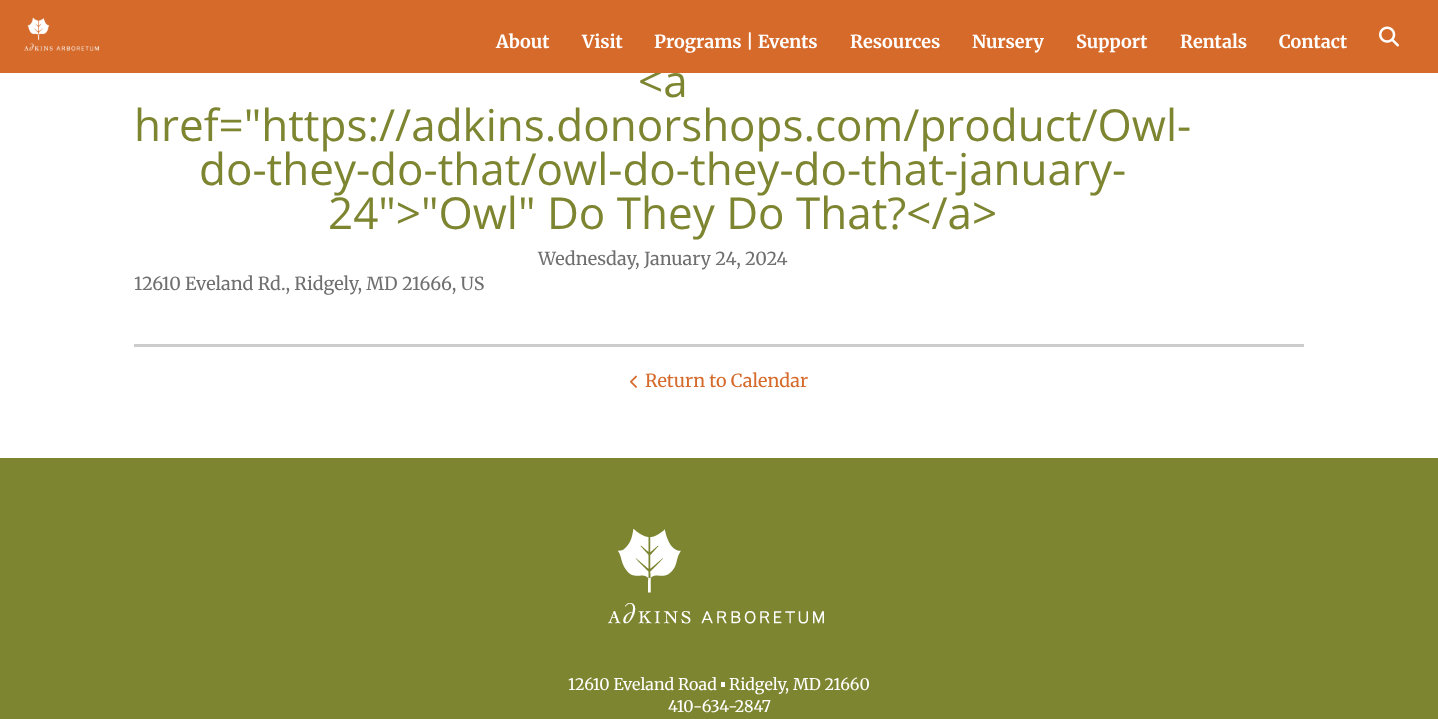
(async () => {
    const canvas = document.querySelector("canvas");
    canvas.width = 1438;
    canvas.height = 719;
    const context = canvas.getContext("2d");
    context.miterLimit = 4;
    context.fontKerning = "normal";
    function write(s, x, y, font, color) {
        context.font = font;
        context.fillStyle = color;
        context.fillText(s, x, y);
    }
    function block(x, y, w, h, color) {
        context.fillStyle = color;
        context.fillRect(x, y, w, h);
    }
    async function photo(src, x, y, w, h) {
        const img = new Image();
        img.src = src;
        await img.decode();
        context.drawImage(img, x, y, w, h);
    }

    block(0, 0, 1438, 719, "rgb(125, 133, 49)");
    block(0, 73, 1438, 385, "rgb(255, 255, 255)");
    write("<a", 638, 97, "44px Open Sans", "rgb(125, 133, 49)");
    block(0, 0, 1438, 73, "rgb(213, 106, 43)");
    await photo("media/1.png", 24, 17, 75, 34);
    write("About", 496, 48, "bold 18px Merriweather", "rgb(255, 255, 255)");
    write("Visit", 582, 48, "bold 18px Merriweather", "rgb(255, 255, 255)");
    write("Programs | Events", 654, 48, "bold 18px Merriweather", "rgb(255, 255, 255)");
    write("Resources", 850, 48, "bold 18px Merriweather", "rgb(255, 255, 255)");
    write("Nursery", 972, 48, "bold 18px Merriweather", "rgb(255, 255, 255)");
    write("Support", 1076, 48, "bold 18px Merriweather", "rgb(255, 255, 255)");
    write("Rentals", 1180, 48, "bold 18px Merriweather", "rgb(255, 255, 255)");
    write("Contact", 1279, 48, "bold 18px Merriweather", "rgb(255, 255, 255)");
    await photo("media/2.png", 1379, 26, 20, 21);
    block(134, 344, 1170, 3, "rgb(204, 204, 204)");
    write("href=\"https://adkins.donorshops.com/product/Owl-", 134, 141, "44px Open Sans", "rgb(125, 133, 49)");
    write("do-they-do-that/owl-do-they-do-that-january-", 199, 185, "44px Open Sans", "rgb(125, 133, 49)");
    write("24\">\"Owl\" Do They Do That?<\/a>", 328, 229, "44px Open Sans", "rgb(125, 133, 49)");
    write("Wednesday, January 24, 2024", 538, 265, "18px Merriweather", "rgb(111, 111, 111)");
    write("12610 Eveland Rd., Ridgely, MD 21666, US", 134, 290, "18px Merriweather", "rgb(111, 111, 111)");
    await photo("media/3.png", 630, 375, 7, 13);
    write("Return to Calendar", 645, 387, "18px Merriweather", "rgb(213, 106, 43)");
    await photo("media/4.png", 608, 529, 216, 95);
    write("12610 Eveland Road", 568, 690, "16px Merriweather", "rgb(255, 255, 255)");
    block(721, 682, 4, 5, "rgb(255, 255, 255)");
    write("Ridgely, MD 21660", 729, 690, "16px Merriweather", "rgb(255, 255, 255)");
    write("410-634-2847", 668, 712, "16px Merriweather", "rgb(255, 255, 255)");
})();
